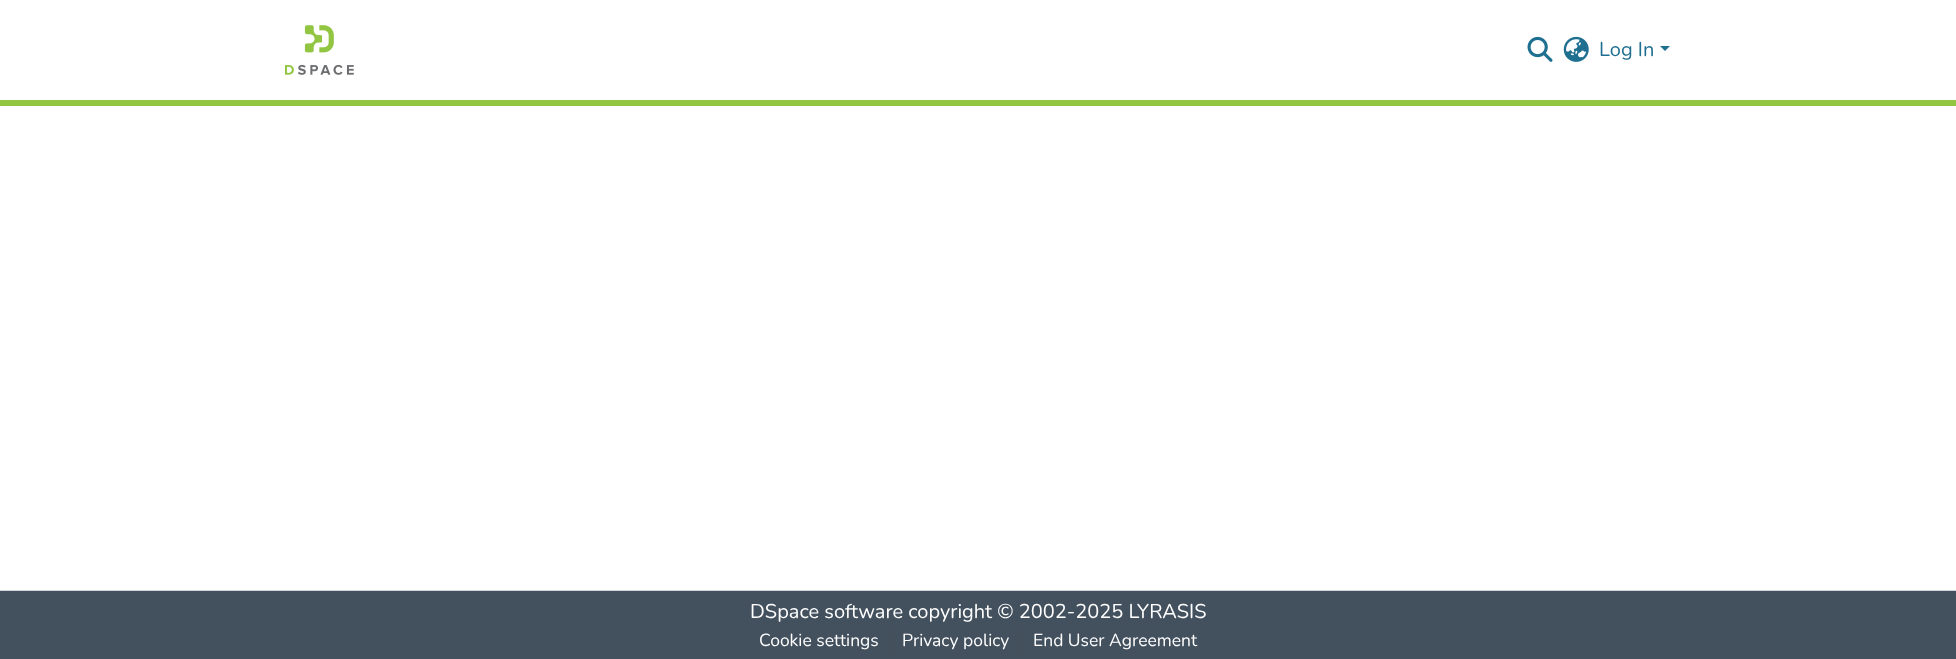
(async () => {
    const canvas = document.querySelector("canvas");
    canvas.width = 1956;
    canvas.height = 659;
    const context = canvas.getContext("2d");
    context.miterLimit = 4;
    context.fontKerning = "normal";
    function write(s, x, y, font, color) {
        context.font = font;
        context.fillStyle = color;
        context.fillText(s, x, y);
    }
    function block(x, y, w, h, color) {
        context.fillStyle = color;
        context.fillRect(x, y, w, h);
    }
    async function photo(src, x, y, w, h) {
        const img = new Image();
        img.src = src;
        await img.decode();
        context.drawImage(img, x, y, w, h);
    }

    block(0, 0, 1956, 659, "rgb(255, 255, 255)");
    block(0, 100, 1956, 6, "rgb(146, 198, 66)");
    await photo("media/1.png", 285, 25, 69, 50);
    await photo("media/2.png", 1527, 36, 26, 26);
    await photo("media/3.png", 1563, 36, 26, 26);
    write("Log In", 1599, 56, "20px Nunito", "rgb(30, 111, 144)");
    context.beginPath();
    context.moveTo(1660, 46);
    context.lineTo(1670, 46);
    context.lineTo(1665, 51);
    context.closePath();
    context.fill();
    block(0, 591, 1956, 68, "rgb(67, 81, 95)");
    block(0, 590, 1956, 1, "rgb(206, 212, 218)");
    write("DSpace software copyright © 2002-2025 LYRASIS", 750, 618, "20px Nunito", "rgb(255, 255, 255)");
    write("Cookie settings", 759, 646, "17.5px Nunito", "rgb(255, 255, 255)");
    block(890, 626, 1, 29, "rgb(73, 80, 87)");
    write("Privacy policy", 902, 646, "17.5px Nunito", "rgb(255, 255, 255)");
    block(1021, 626, 1, 29, "rgb(73, 80, 87)");
    write("End User Agreement", 1033, 646, "17.5px Nunito", "rgb(255, 255, 255)");
})();
